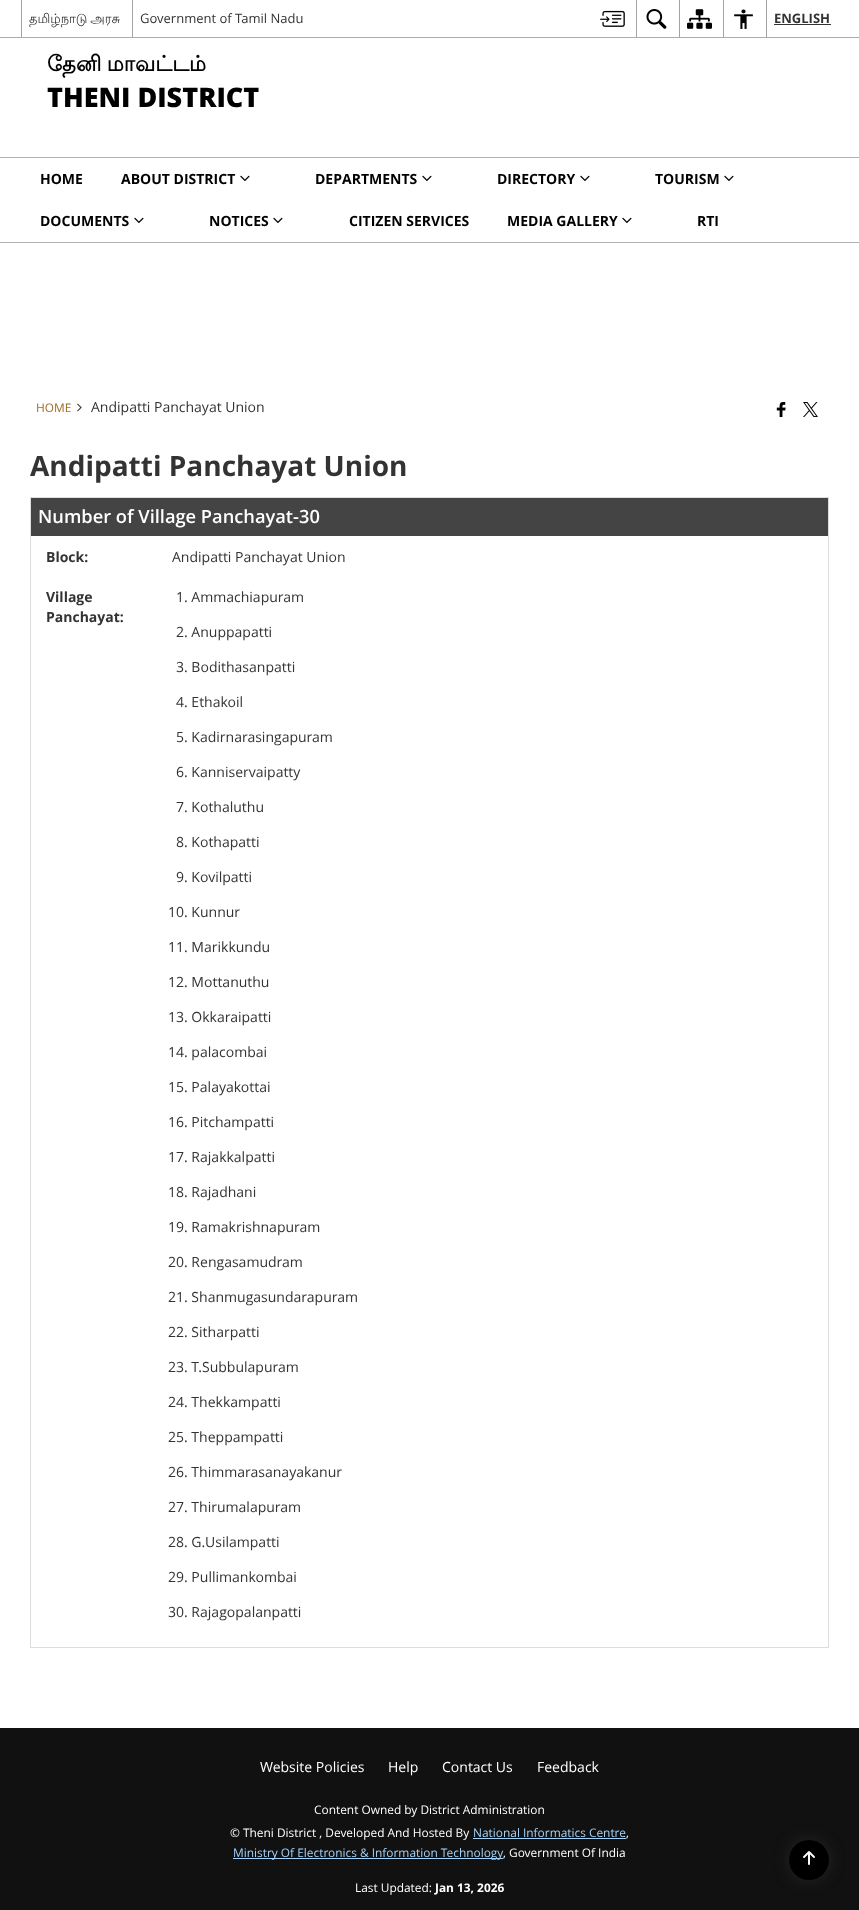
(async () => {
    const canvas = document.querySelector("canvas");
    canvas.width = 859;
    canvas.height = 1910;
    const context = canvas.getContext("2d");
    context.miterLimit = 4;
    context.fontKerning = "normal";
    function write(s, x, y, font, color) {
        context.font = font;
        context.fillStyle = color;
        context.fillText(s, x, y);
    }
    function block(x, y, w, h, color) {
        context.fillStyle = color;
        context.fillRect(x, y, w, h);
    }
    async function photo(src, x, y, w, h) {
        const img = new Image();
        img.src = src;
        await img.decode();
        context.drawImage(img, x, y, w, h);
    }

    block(0, 0, 859, 1910, "rgb(255, 255, 255)");
    block(0, 37, 859, 1, "rgb(171, 171, 171)");
    block(21, 0, 1, 37, "rgb(163, 163, 163)");
    context.wordSpacing = "-1px";
    write("தமிழ்நாடு அரசு", 29, 23, "13px Lohit Tamil", "rgb(51, 51, 51)");
    block(132, 0, 1, 37, "rgb(163, 163, 163)");
    context.wordSpacing = "0px";
    write("Government of Tamil Nadu", 140, 23, "13px Open Sans", "rgb(51, 51, 51)");
    await photo("media/1.png", 600, 10, 25, 17);
    block(636, 0, 1, 37, "rgb(163, 163, 163)");
    await photo("media/2.png", 646, 9, 21, 20);
    block(679, 0, 1, 37, "rgb(163, 163, 163)");
    await photo("media/3.png", 687, 9, 25, 20);
    block(723, 0, 1, 37, "rgb(163, 163, 163)");
    await photo("media/4.png", 734, 9, 19, 20);
    block(766, 0, 1, 37, "rgb(163, 163, 163)");
    write("ENGLISH", 774, 23, "bold 13px Open Sans", "rgb(51, 51, 51)");
    block(774, 24, 57, 1, "rgb(51, 51, 51)");
    context.wordSpacing = "-1px";
    write("தேனி மாவட்டம்", 47, 71, "bold 21.25px Lohit Tamil", "rgb(0, 0, 0)");
    context.wordSpacing = "0px";
    write("THENI DISTRICT", 47, 107, "800 27px Open Sans", "rgb(0, 0, 0)");
    block(0, 157, 859, 1, "rgb(179, 179, 179)");
    block(0, 242, 859, 1, "rgb(179, 179, 179)");
    write("HOME", 40, 184, "bold 14px Open Sans", "rgb(0, 0, 0)");
    write("ABOUT DISTRICT", 121, 184, "bold 14px Open Sans", "rgb(0, 0, 0)");
    await photo("media/5.png", 240, 175, 10, 7);
    write("DEPARTMENTS", 315, 184, "bold 14px Open Sans", "rgb(0, 0, 0)");
    await photo("media/5.png", 422, 175, 10, 7);
    write("DIRECTORY", 497, 184, "bold 14px Open Sans", "rgb(0, 0, 0)");
    await photo("media/5.png", 580, 175, 10, 7);
    write("TOURISM", 655, 184, "bold 14px Open Sans", "rgb(0, 0, 0)");
    await photo("media/5.png", 724, 175, 10, 7);
    write("DOCUMENTS", 40, 226, "bold 14px Open Sans", "rgb(0, 0, 0)");
    await photo("media/5.png", 134, 217, 10, 7);
    write("NOTICES", 209, 226, "bold 14px Open Sans", "rgb(0, 0, 0)");
    await photo("media/5.png", 273, 217, 10, 7);
    write("CITIZEN SERVICES", 349, 226, "bold 14px Open Sans", "rgb(0, 0, 0)");
    write("MEDIA GALLERY", 507, 226, "bold 14px Open Sans", "rgb(0, 0, 0)");
    await photo("media/5.png", 622, 217, 10, 7);
    write("RTI", 697, 226, "bold 14px Open Sans", "rgb(0, 0, 0)");
    write("HOME", 36, 412, "11.9px Open Sans", "rgb(158, 107, 34)");
    await photo("media/6.png", 77, 403, 5, 9);
    write("Andipatti Panchayat Union", 91, 412, "14px Open Sans", "rgb(51, 51, 51)");
    await photo("media/7.png", 776, 402, 10, 15);
    await photo("media/8.png", 803, 402, 15, 15);
    write("Andipatti Panchayat Union", 30, 476, "bold 28px Open Sans", "rgb(51, 51, 51)");
    block(30, 497, 799, 1, "rgb(221, 221, 221)");
    block(828, 497, 1, 1151, "rgb(221, 221, 221)");
    block(30, 1647, 799, 1, "rgb(221, 221, 221)");
    block(30, 497, 1, 1151, "rgb(221, 221, 221)");
    block(31, 498, 797, 38, "rgb(68, 68, 68)");
    write("Number of Village Panchayat-30", 38, 523, "600 18.25px Open Sans", "rgb(255, 255, 255)");
    write("Block:", 46, 562, "bold 14px Open Sans", "rgb(51, 51, 51)");
    write("Andipatti Panchayat Union", 172, 562, "14px Open Sans", "rgb(51, 51, 51)");
    write("Village", 46, 602, "bold 14px Open Sans", "rgb(51, 51, 51)");
    write("Panchayat:", 46, 622, "bold 14px Open Sans", "rgb(51, 51, 51)");
    write("1. Ammachiapuram", 176, 602, "14px Open Sans", "rgb(51, 51, 51)");
    write("2. Anuppapatti", 176, 637, "14px Open Sans", "rgb(51, 51, 51)");
    write("3. Bodithasanpatti", 176, 672, "14px Open Sans", "rgb(51, 51, 51)");
    write("4. Ethakoil", 176, 707, "14px Open Sans", "rgb(51, 51, 51)");
    write("5. Kadirnarasingapuram", 176, 742, "14px Open Sans", "rgb(51, 51, 51)");
    write("6. Kanniservaipatty", 176, 777, "14px Open Sans", "rgb(51, 51, 51)");
    write("7. Kothaluthu", 176, 812, "14px Open Sans", "rgb(51, 51, 51)");
    write("8. Kothapatti", 176, 847, "14px Open Sans", "rgb(51, 51, 51)");
    write("9. Kovilpatti", 176, 882, "14px Open Sans", "rgb(51, 51, 51)");
    write("10. Kunnur", 168, 917, "14px Open Sans", "rgb(51, 51, 51)");
    write("11. Marikkundu", 168, 952, "14px Open Sans", "rgb(51, 51, 51)");
    write("12. Mottanuthu", 168, 987, "14px Open Sans", "rgb(51, 51, 51)");
    write("13. Okkaraipatti", 168, 1022, "14px Open Sans", "rgb(51, 51, 51)");
    write("14. palacombai", 168, 1057, "14px Open Sans", "rgb(51, 51, 51)");
    write("15. Palayakottai", 168, 1092, "14px Open Sans", "rgb(51, 51, 51)");
    write("16. Pitchampatti", 168, 1127, "14px Open Sans", "rgb(51, 51, 51)");
    write("17. Rajakkalpatti", 168, 1162, "14px Open Sans", "rgb(51, 51, 51)");
    write("18. Rajadhani", 168, 1197, "14px Open Sans", "rgb(51, 51, 51)");
    write("19. Ramakrishnapuram", 168, 1232, "14px Open Sans", "rgb(51, 51, 51)");
    write("20. Rengasamudram", 168, 1267, "14px Open Sans", "rgb(51, 51, 51)");
    write("21. Shanmugasundarapuram", 168, 1302, "14px Open Sans", "rgb(51, 51, 51)");
    write("22. Sitharpatti", 168, 1337, "14px Open Sans", "rgb(51, 51, 51)");
    write("23. T.Subbulapuram", 168, 1372, "14px Open Sans", "rgb(51, 51, 51)");
    write("24. Thekkampatti", 168, 1407, "14px Open Sans", "rgb(51, 51, 51)");
    write("25. Theppampatti", 168, 1442, "14px Open Sans", "rgb(51, 51, 51)");
    write("26. Thimmarasanayakanur", 168, 1477, "14px Open Sans", "rgb(51, 51, 51)");
    write("27. Thirumalapuram", 168, 1512, "14px Open Sans", "rgb(51, 51, 51)");
    write("28. G.Usilampatti", 168, 1547, "14px Open Sans", "rgb(51, 51, 51)");
    write("29. Pullimankombai", 168, 1582, "14px Open Sans", "rgb(51, 51, 51)");
    write("30. Rajagopalanpatti", 168, 1617, "14px Open Sans", "rgb(51, 51, 51)");
    block(0, 1728, 859, 182, "rgb(17, 17, 17)");
    write("Website Policies", 260, 1772, "14px Open Sans", "rgb(255, 255, 255)");
    write("Help", 388, 1772, "14px Open Sans", "rgb(255, 255, 255)");
    write("Contact Us", 442, 1772, "14px Open Sans", "rgb(255, 255, 255)");
    write("Feedback", 537, 1772, "14px Open Sans", "rgb(255, 255, 255)");
    write("Content Owned by District Administration", 314, 1814, "11.9px Open Sans", "rgb(255, 255, 255)");
    write("© Theni District , Developed And Hosted By", 230, 1837, "11.9px Open Sans", "rgb(255, 255, 255)");
    write("National Informatics Centre", 473, 1837, "11.9px Open Sans", "rgb(163, 210, 249)");
    block(473, 1838, 153, 1, "rgb(163, 210, 249)");
    write(",", 626, 1837, "11.9px Open Sans", "rgb(255, 255, 255)");
    block(233, 1858, 270, 1, "rgb(163, 210, 249)");
    write("Ministry Of Electronics & Information Technology", 233, 1857, "11.9px Open Sans", "rgb(163, 210, 249)");
    write(", Government Of India", 503, 1857, "11.9px Open Sans", "rgb(255, 255, 255)");
    write("Last Updated:", 355, 1892, "11.9px Open Sans", "rgb(255, 255, 255)");
    write("Jan 13, 2026", 435, 1892, "bold 11.9px Open Sans", "rgb(255, 255, 255)");
    context.fillStyle = "rgb(60, 60, 60)";
    context.filter = "blur(9.5px)";
    context.beginPath();
    context.roundRect(794, 1845, 30, 30, 15);
    context.fill();
    context.filter = "none";
    context.fillStyle = "rgb(0, 0, 0)";
    context.beginPath();
    context.arc(809, 1860, 20, 0, Math.PI * 2);
    context.fill();
    await photo("media/9.png", 803, 1851, 12, 14);
})();
